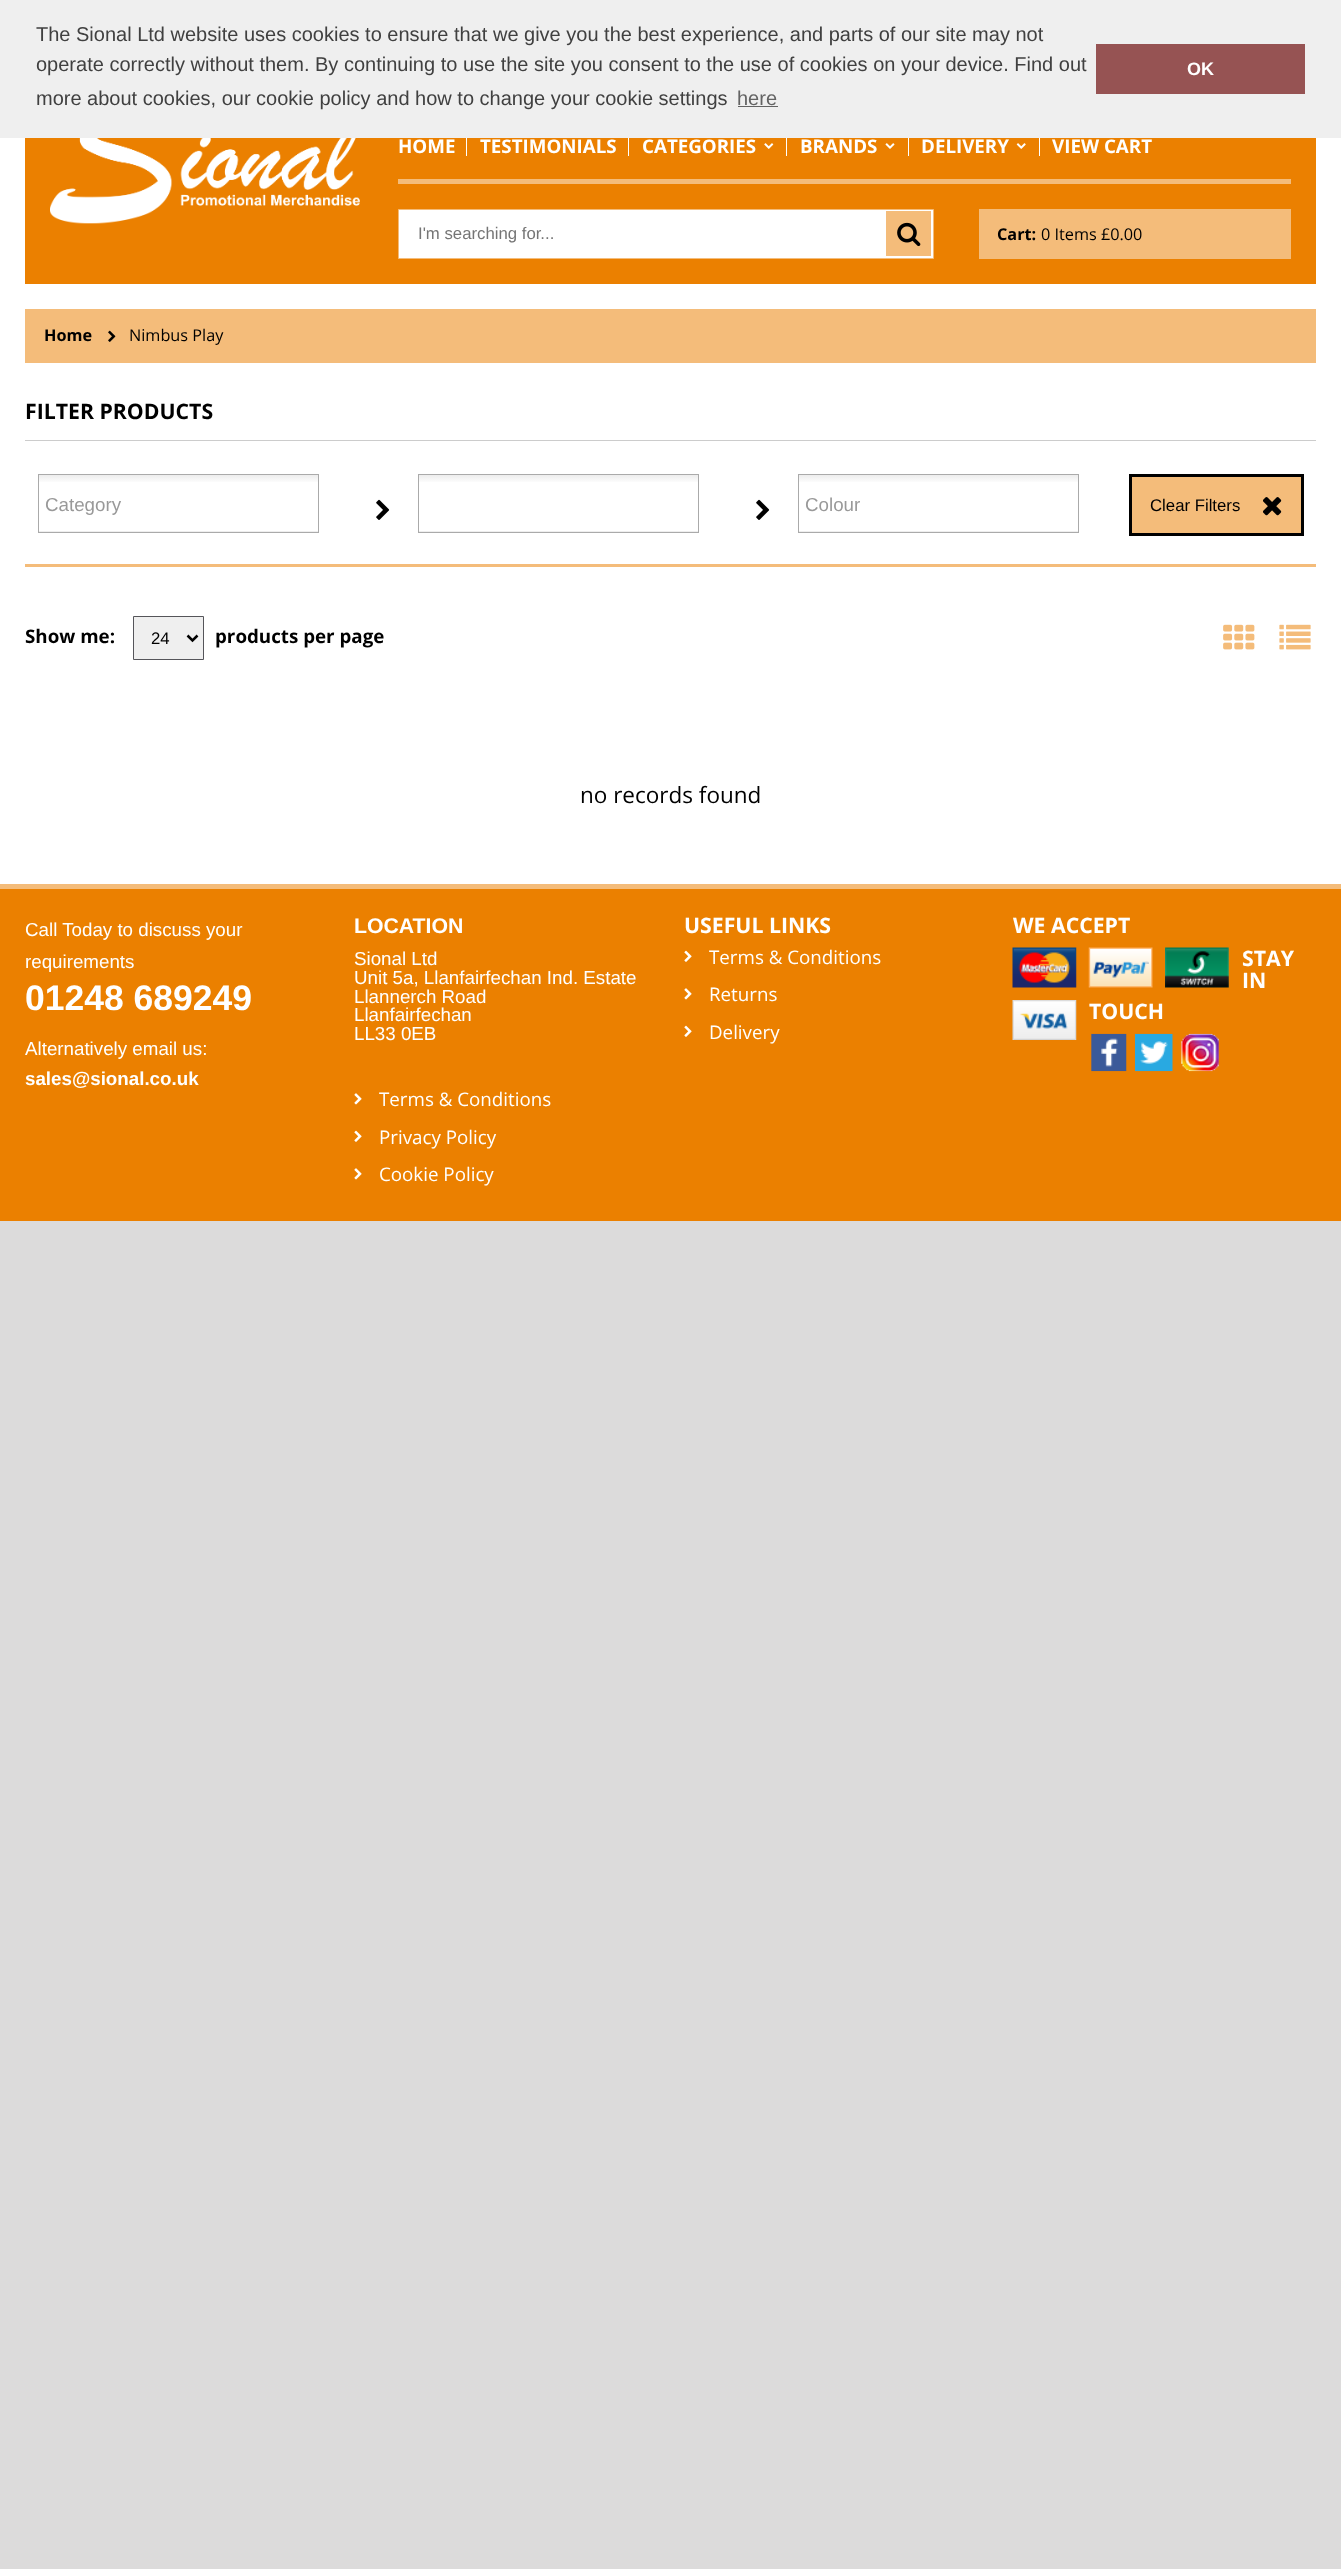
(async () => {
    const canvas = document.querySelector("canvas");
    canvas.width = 1341;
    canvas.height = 2569;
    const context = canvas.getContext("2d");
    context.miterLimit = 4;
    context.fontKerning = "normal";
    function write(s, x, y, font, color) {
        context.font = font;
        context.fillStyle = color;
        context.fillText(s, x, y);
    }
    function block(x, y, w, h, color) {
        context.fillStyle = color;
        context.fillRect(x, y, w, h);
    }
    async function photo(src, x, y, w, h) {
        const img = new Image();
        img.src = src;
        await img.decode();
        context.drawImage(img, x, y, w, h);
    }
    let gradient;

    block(0, 0, 1341, 2569, "rgb(220, 219, 219)");
    block(0, 0, 1341, 138, "rgb(239, 239, 239)");
    write("The Sional Ltd website uses cookies to ensure that we give you the best experience, and parts of our site may not", 36, 41, "20px Liberation Sans", "rgb(64, 64, 64)");
    write("operate correctly without them. By continuing to use the site you consent to the use of cookies on your device. Find out", 36, 71, "20px Liberation Sans", "rgb(64, 64, 64)");
    write("more about cookies, our cookie policy and how to change your cookie settings", 36, 105, "20px Liberation Sans", "rgb(64, 64, 64)");
    write("here", 737, 105, "20px Liberation Sans", "rgb(99, 99, 99)");
    block(738, 106, 40, 1, "rgb(99, 99, 99)");
    block(1096, 44, 209, 50, "rgb(150, 83, 83)");
    write("OK", 1187, 75, "bold 18px Liberation Sans", "rgb(255, 255, 255)");
    block(0, 138, 1341, 746, "rgb(255, 255, 255)");
    block(25, 138, 1291, 146, "rgb(235, 128, 0)");
    await photo("media/1.png", 50, 138, 310, 86);
    block(398, 179, 893, 5, "rgb(244, 188, 122)");
    write("HOME", 398, 153, "bold 18.75px Open Sans", "rgb(255, 255, 255)");
    block(466, 138, 1, 18, "rgb(255, 255, 255)");
    write("TESTIMONIALS", 480, 153, "bold 18.75px Open Sans", "rgb(255, 255, 255)");
    block(628, 138, 1, 18, "rgb(255, 255, 255)");
    write("CATEGORIES", 642, 153, "bold 18.75px Open Sans", "rgb(255, 255, 255)");
    await photo("media/2.png", 764, 143, 10, 6);
    block(786, 138, 1, 18, "rgb(255, 255, 255)");
    write("BRANDS", 800, 153, "bold 18.75px Open Sans", "rgb(255, 255, 255)");
    await photo("media/3.png", 885, 143, 10, 6);
    block(908, 138, 1, 18, "rgb(255, 255, 255)");
    write("DELIVERY", 921, 153, "bold 18.75px Open Sans", "rgb(255, 255, 255)");
    await photo("media/4.png", 1016, 143, 10, 6);
    block(1039, 138, 1, 18, "rgb(255, 255, 255)");
    write("VIEW CART", 1052, 153, "bold 18.75px Open Sans", "rgb(255, 255, 255)");
    context.beginPath();
    context.rect(398.5, 209.5, 535, 49);
    context.fill();
    context.strokeStyle = "rgb(244, 188, 122)";
    context.stroke();
    write("I'm searching for...", 418, 239, "16.75px Liberation Sans", "rgb(117, 117, 117)");
    block(886, 211, 45, 45, "rgb(244, 188, 122)");
    await photo("media/5.png", 897, 222, 24, 25);
    block(979, 209, 312, 50, "rgb(244, 188, 122)");
    write("Cart:", 997, 240, "bold 16.25px Open Sans", "rgb(0, 0, 0)");
    write("0 Items £0.00", 1041, 240, "16.25px Open Sans", "rgb(0, 0, 0)");
    block(25, 309, 1291, 54, "rgb(244, 188, 122)");
    write("Home", 44, 341, "bold 16.25px Open Sans", "rgb(0, 0, 0)");
    await photo("media/6.png", 108, 330, 8, 12);
    write("Nimbus Play", 129, 341, "16.25px Open Sans", "rgb(0, 0, 0)");
    write("FILTER PRODUCTS", 25, 419, "bold 21.25px Open Sans", "rgb(0, 0, 0)");
    block(25, 440, 1291, 1, "rgb(204, 204, 204)");
    gradient = context.createLinearGradient(178, 475, 178, 531);
    gradient.addColorStop(0.01, "rgb(238, 238, 238)");
    gradient.addColorStop(0.15, "rgb(255, 255, 255)");
    context.fillStyle = gradient;
    context.fillRect(39, 475, 279, 7);
    gradient = context.createLinearGradient(178, 531, 178, 588);
    gradient.addColorStop(0.01, "rgb(238, 238, 238)");
    gradient.addColorStop(0.15, "rgb(255, 255, 255)");
    context.fillStyle = gradient;
    context.fillRect(38, 531, 281, 1);
    context.strokeStyle = "rgb(170, 170, 170)";
    context.strokeRect(38.5, 474.5, 280, 58);
    write("Category", 45, 511, "18.75px Liberation Sans", "rgb(153, 153, 153)");
    await photo("media/7.png", 376, 499, 14, 21);
    gradient = context.createLinearGradient(558, 475, 558, 531);
    gradient.addColorStop(0.01, "rgb(238, 238, 238)");
    gradient.addColorStop(0.15, "rgb(255, 255, 255)");
    context.fillStyle = gradient;
    context.fillRect(419, 475, 279, 7);
    gradient = context.createLinearGradient(558, 531, 558, 588);
    gradient.addColorStop(0.01, "rgb(238, 238, 238)");
    gradient.addColorStop(0.15, "rgb(255, 255, 255)");
    context.fillStyle = gradient;
    context.fillRect(418, 531, 281, 1);
    context.strokeRect(418.5, 474.5, 280, 58);
    await photo("media/7.png", 756, 499, 14, 21);
    gradient = context.createLinearGradient(938, 475, 938, 531);
    gradient.addColorStop(0.01, "rgb(238, 238, 238)");
    gradient.addColorStop(0.15, "rgb(255, 255, 255)");
    context.fillStyle = gradient;
    context.fillRect(799, 475, 279, 7);
    gradient = context.createLinearGradient(938, 531, 938, 588);
    gradient.addColorStop(0.01, "rgb(238, 238, 238)");
    gradient.addColorStop(0.15, "rgb(255, 255, 255)");
    context.fillStyle = gradient;
    context.fillRect(798, 531, 281, 1);
    context.strokeRect(798.5, 474.5, 280, 58);
    write("Colour", 805, 511, "18.75px Liberation Sans", "rgb(153, 153, 153)");
    context.fillStyle = "rgb(244, 188, 122)";
    context.beginPath();
    context.rect(1130.5, 475.5, 172, 59);
    context.fill();
    context.strokeStyle = "rgb(0, 0, 0)";
    context.lineWidth = 3;
    context.stroke();
    write("Clear Filters", 1150, 511, "16.75px Liberation Sans", "rgb(0, 0, 0)");
    await photo("media/8.png", 1263, 497, 19, 19);
    block(25, 564, 1291, 3, "rgb(244, 188, 122)");
    write("Show me:", 25, 643, "bold 18.75px Open Sans", "rgb(0, 0, 0)");
    context.fillStyle = "rgb(239, 239, 239)";
    context.beginPath();
    context.rect(133.5, 616.5, 70, 43);
    context.fill();
    context.strokeStyle = "rgb(85, 85, 90)";
    context.lineWidth = 1;
    context.stroke();
    context.beginPath();
    context.moveTo(187.5, 635.5);
    context.lineTo(192.5, 640.5);
    context.lineTo(197.5, 635.5);
    context.strokeStyle = "rgb(0, 0, 0)";
    context.lineWidth = 2.5;
    context.stroke();
    write("24", 151, 644, "16.75px Liberation Sans", "rgb(0, 0, 0)");
    write("products per page", 215, 643, "bold 18.75px Open Sans", "rgb(0, 0, 0)");
    await photo("media/9.png", 1223, 624, 32, 26);
    await photo("media/10.png", 1279, 624, 32, 26);
    write("no records found", 580, 803, "22.5px Open Sans", "rgb(0, 0, 0)");
    block(0, 889, 1341, 332, "rgb(235, 128, 0)");
    block(0, 884, 1341, 5, "rgb(244, 188, 122)");
    write("Call Today to discuss your", 25, 936, "18.75px Liberation Sans", "rgb(255, 255, 255)");
    write("requirements", 25, 968, "18.75px Liberation Sans", "rgb(255, 255, 255)");
    write("01248 689249", 25, 1010, "bold 35.5px Liberation Sans", "rgb(255, 255, 255)");
    write("Alternatively email us:", 25, 1055, "18.75px Liberation Sans", "rgb(255, 255, 255)");
    write("sales@sional.co.uk", 25, 1085, "bold 18.75px Liberation Sans", "rgb(255, 255, 255)");
    write("LOCATION", 354, 933, "bold 21.25px Liberation Sans", "rgb(255, 255, 255)");
    write("Sional Ltd", 354, 965, "18.75px Liberation Sans", "rgb(255, 255, 255)");
    write("Unit 5a, Llanfairfechan Ind. Estate", 354, 984, "18.75px Liberation Sans", "rgb(255, 255, 255)");
    write("Llannerch Road", 354, 1003, "18.75px Liberation Sans", "rgb(255, 255, 255)");
    write("Llanfairfechan", 354, 1021, "18.75px Liberation Sans", "rgb(255, 255, 255)");
    write("LL33 0EB", 354, 1040, "18.75px Liberation Sans", "rgb(255, 255, 255)");
    write("USEFUL LINKS", 684, 933, "bold 21.25px Open Sans", "rgb(255, 255, 255)");
    await photo("media/11.png", 684, 950, 8, 12);
    write("Terms & Conditions", 709, 964, "18.75px Open Sans", "rgb(255, 255, 255)");
    await photo("media/12.png", 684, 988, 8, 12);
    write("Returns", 709, 1001, "18.75px Open Sans", "rgb(255, 255, 255)");
    await photo("media/11.png", 684, 1025, 8, 12);
    write("Delivery", 709, 1039, "18.75px Open Sans", "rgb(255, 255, 255)");
    write("WE ACCEPT", 1013, 933, "bold 21.25px Open Sans", "rgb(255, 255, 255)");
    await photo("media/13.png", 1012, 947, 65, 41);
    await photo("media/14.png", 1088, 947, 65, 41);
    await photo("media/15.png", 1165, 947, 64, 41);
    await photo("media/16.png", 1012, 1000, 65, 40);
    write("STAY", 1242, 966, "bold 21.25px Open Sans", "rgb(255, 255, 255)");
    write("IN", 1242, 988, "bold 21.25px Open Sans", "rgb(255, 255, 255)");
    write("TOUCH", 1089, 1019, "bold 21.25px Open Sans", "rgb(255, 255, 255)");
    await photo("media/17.png", 1091, 1033, 36, 39);
    await photo("media/18.png", 1135, 1033, 38, 39);
    await photo("media/19.png", 1181, 1033, 38, 39);
    await photo("media/12.png", 354, 1093, 8, 12);
    write("Terms & Conditions", 379, 1106, "18.75px Open Sans", "rgb(255, 255, 255)");
    await photo("media/11.png", 354, 1130, 8, 12);
    write("Privacy Policy", 379, 1144, "18.75px Open Sans", "rgb(255, 255, 255)");
    await photo("media/12.png", 354, 1168, 8, 12);
    write("Cookie Policy", 379, 1181, "18.75px Open Sans", "rgb(255, 255, 255)");
})();
